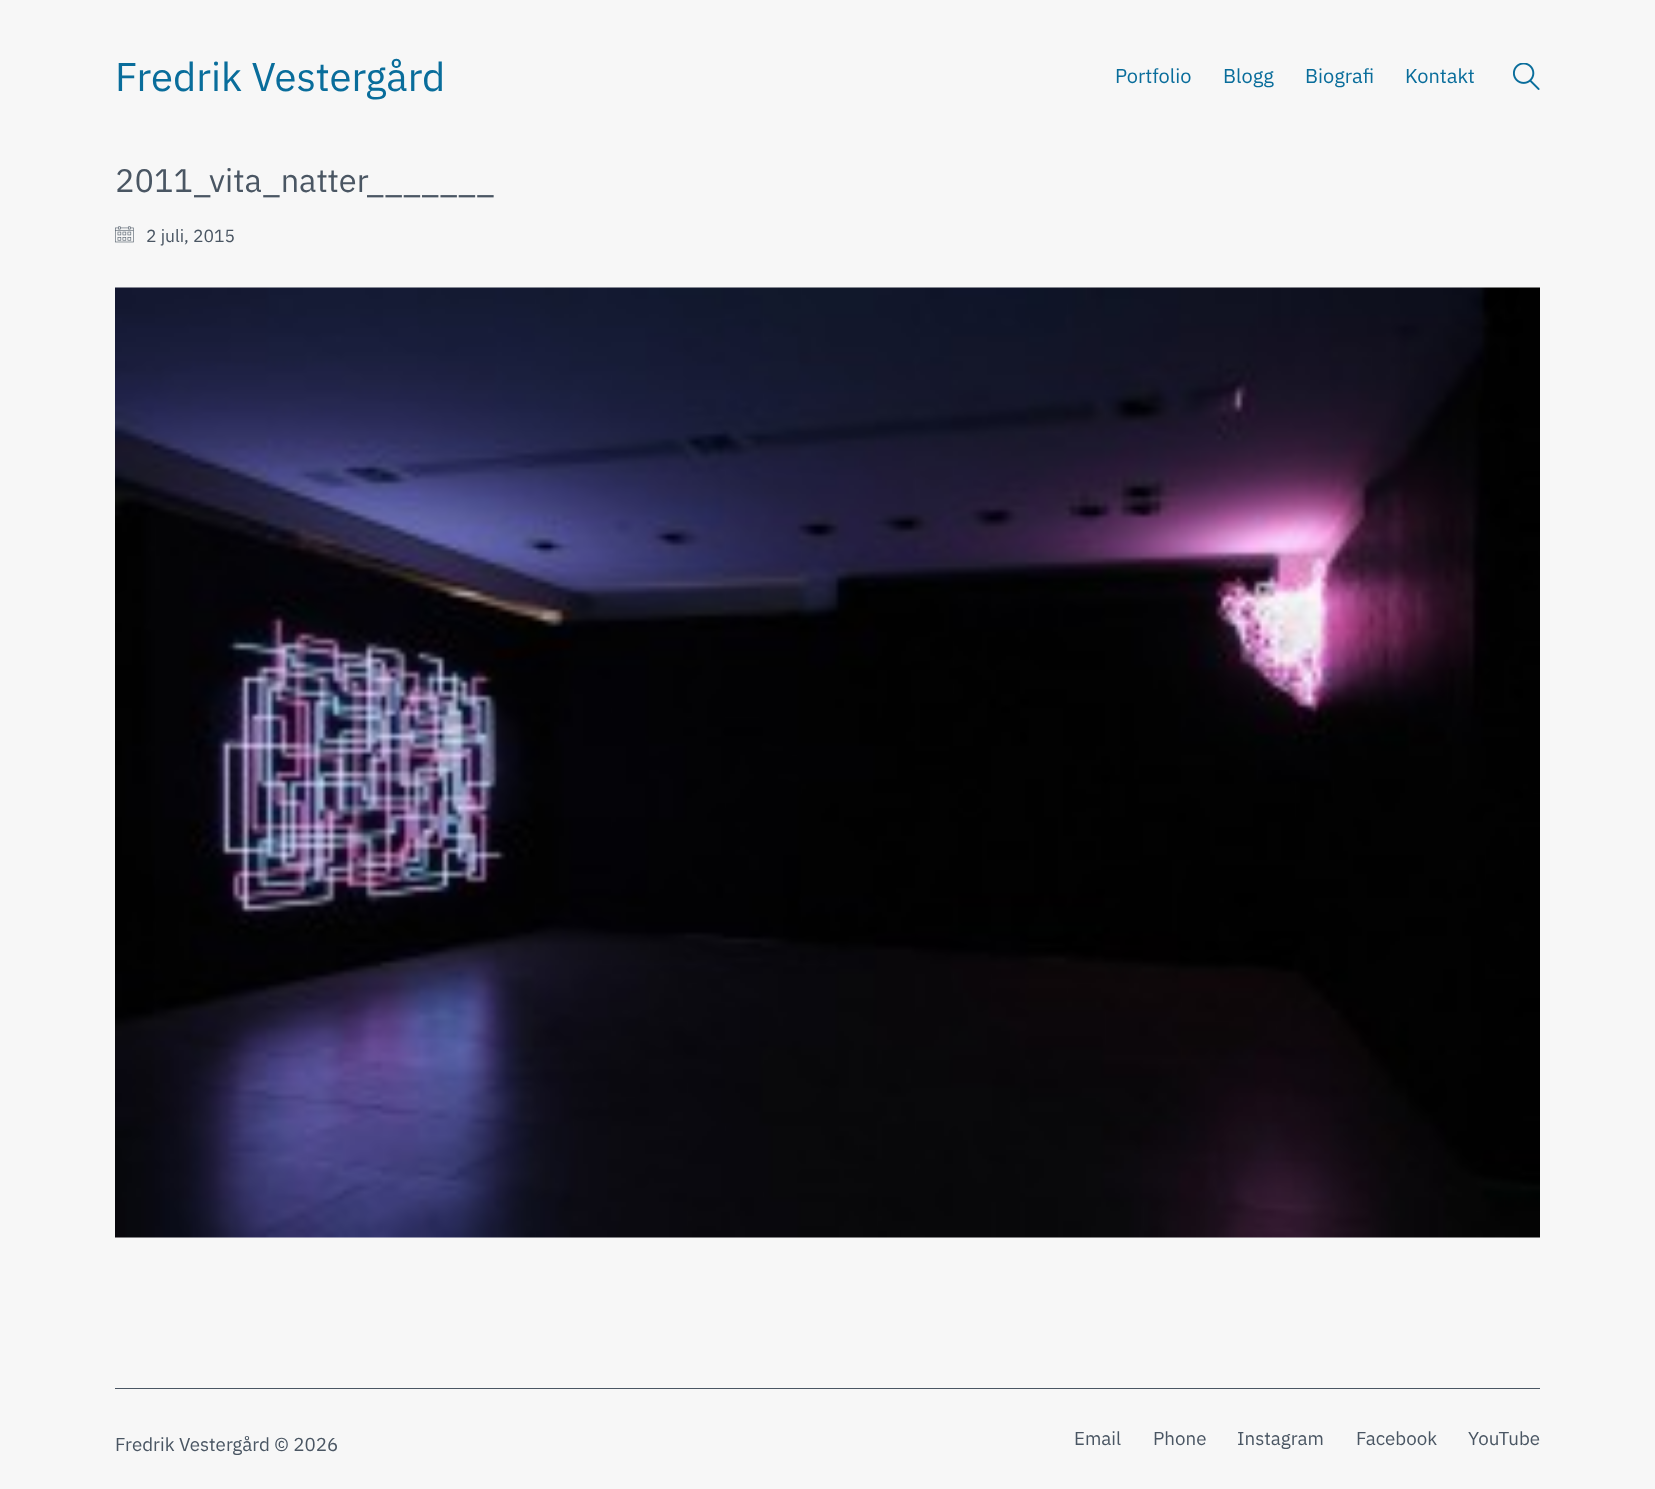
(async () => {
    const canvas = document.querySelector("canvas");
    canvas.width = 1655;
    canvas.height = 1489;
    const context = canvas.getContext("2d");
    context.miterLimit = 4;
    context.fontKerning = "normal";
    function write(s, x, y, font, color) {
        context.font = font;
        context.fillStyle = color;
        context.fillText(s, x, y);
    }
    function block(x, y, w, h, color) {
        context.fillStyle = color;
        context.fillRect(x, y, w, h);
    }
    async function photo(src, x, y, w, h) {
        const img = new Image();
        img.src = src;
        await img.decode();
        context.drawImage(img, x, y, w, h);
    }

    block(0, 0, 1655, 1489, "rgb(247, 247, 247)");
    write("Fredrik Vestergård", 115, 91, "40px IBM Plex Sans", "rgb(9, 109, 155)");
    write("Portfolio", 1115, 83, "20px IBM Plex Sans", "rgb(9, 109, 155)");
    write("Blogg", 1223, 83, "20px IBM Plex Sans", "rgb(9, 109, 155)");
    write("Biografi", 1305, 83, "20px IBM Plex Sans", "rgb(9, 109, 155)");
    write("Kontakt", 1405, 83, "20px IBM Plex Sans", "rgb(9, 109, 155)");
    await photo("media/1.png", 1513, 63, 27, 27);
    write("2011_vita_natter_______", 115, 192, "32.5px IBM Plex Sans", "rgb(74, 86, 99)");
    await photo("media/2.png", 115, 226, 19, 17);
    write("2 juli, 2015", 146, 242, "17.5px IBM Plex Sans", "rgb(74, 86, 99)");
    await photo("media/3.png", 115, 287, 1425, 951);
    block(115, 1388, 1425, 1, "rgb(74, 86, 99)");
    write("Fredrik Vestergård © 2026", 115, 1451, "18.75px IBM Plex Sans", "rgb(74, 86, 99)");
    write("Email", 1074, 1445, "18.75px IBM Plex Sans", "rgb(74, 86, 99)");
    write("Phone", 1153, 1445, "18.75px IBM Plex Sans", "rgb(74, 86, 99)");
    write("Instagram", 1237, 1445, "18.75px IBM Plex Sans", "rgb(74, 86, 99)");
    write("Facebook", 1356, 1445, "18.75px IBM Plex Sans", "rgb(74, 86, 99)");
    write("YouTube", 1468, 1445, "18.75px IBM Plex Sans", "rgb(74, 86, 99)");
})();
